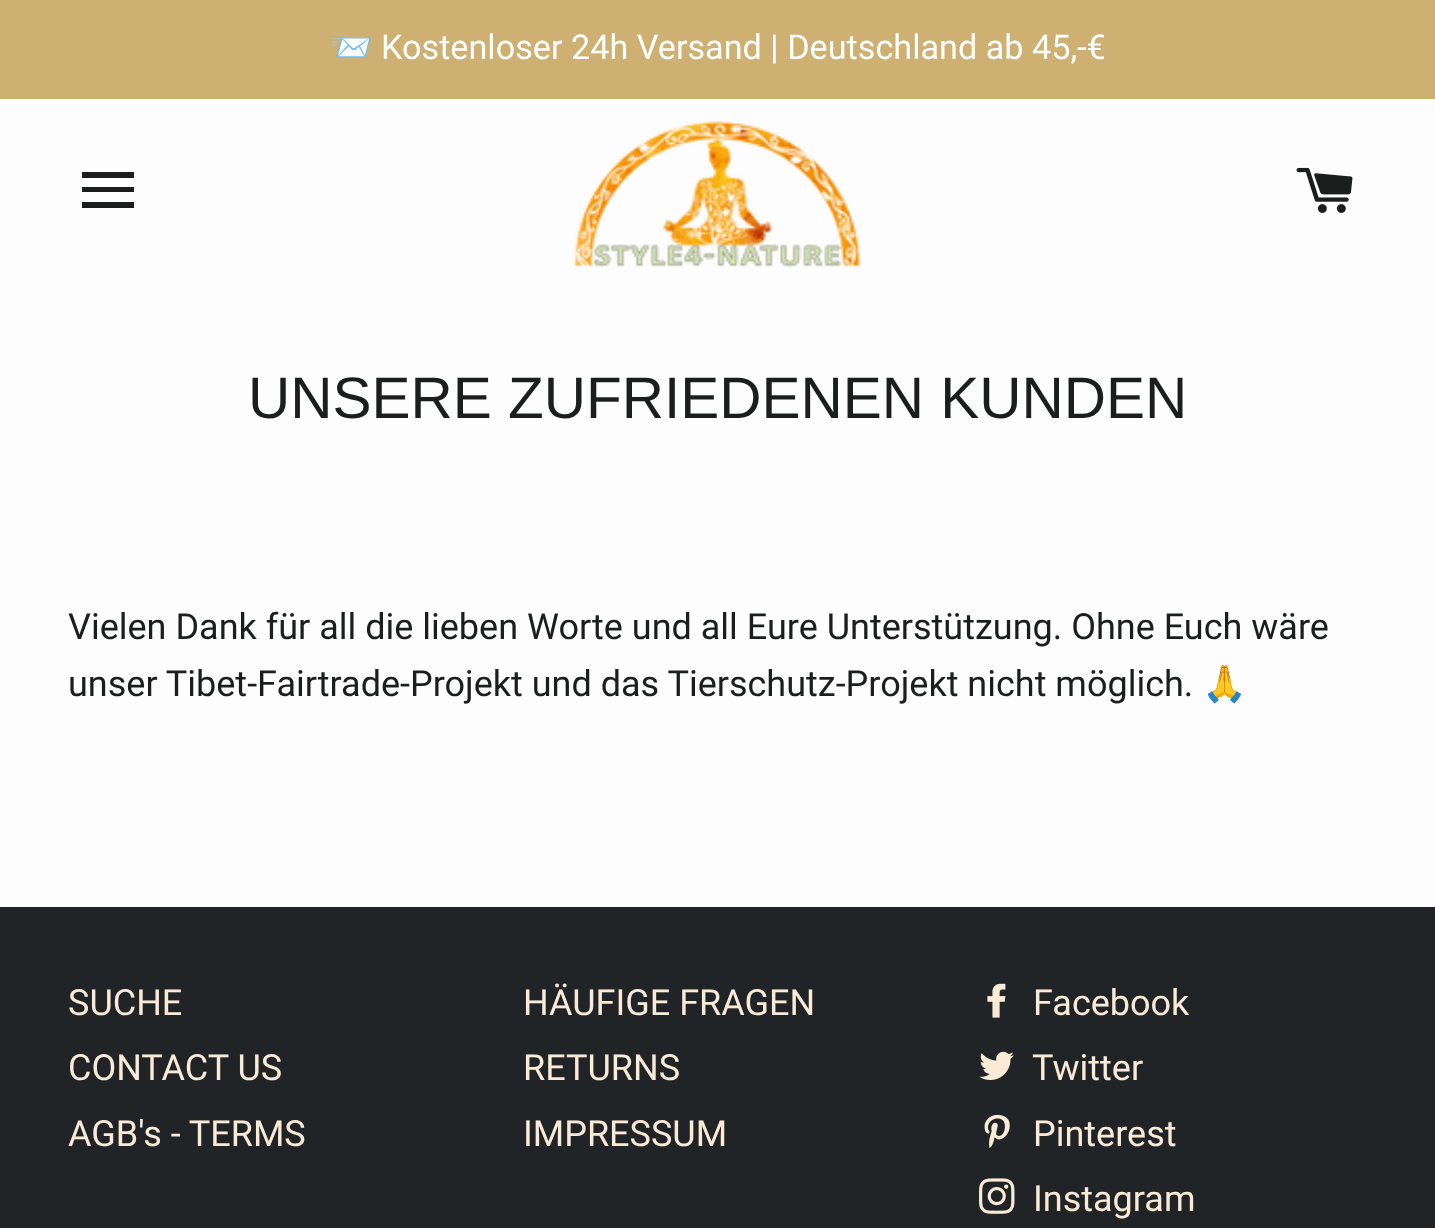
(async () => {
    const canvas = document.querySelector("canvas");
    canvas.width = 1435;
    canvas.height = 1228;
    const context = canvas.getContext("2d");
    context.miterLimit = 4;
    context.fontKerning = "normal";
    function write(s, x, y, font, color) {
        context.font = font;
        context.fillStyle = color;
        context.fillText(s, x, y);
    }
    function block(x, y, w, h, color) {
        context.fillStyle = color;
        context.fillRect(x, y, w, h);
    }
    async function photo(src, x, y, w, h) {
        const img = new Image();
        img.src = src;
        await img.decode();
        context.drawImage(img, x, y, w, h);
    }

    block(0, 0, 1435, 1228, "rgb(253, 253, 253)");
    block(0, 0, 1435, 99, "rgb(206, 177, 114)");
    write("📨", 330, 59, "34.2px Noto Color Emoji", "rgb(255, 255, 255)");
    write("Kostenloser 24h Versand | Deutschland ab 45,-€", 381, 59, "34.2px Roboto", "rgb(255, 255, 255)");
    context.fillStyle = "rgb(28, 29, 29)";
    context.beginPath();
    context.moveTo(82, 172);
    context.lineTo(134, 172);
    context.lineTo(134, 178);
    context.lineTo(82, 178);
    context.closePath();
    context.moveTo(82, 187);
    context.lineTo(134, 187);
    context.lineTo(134, 192);
    context.lineTo(82, 192);
    context.closePath();
    context.moveTo(82, 202);
    context.lineTo(134, 202);
    context.lineTo(134, 208);
    context.lineTo(82, 208);
    context.closePath();
    context.fill();
    await photo("media/1.png", 573, 121, 288, 147);
    await photo("media/2.png", 1296, 167, 57, 46);
    write("UNSERE ZUFRIEDENEN KUNDEN", 248, 418, "58.5px Liberation Sans", "rgb(28, 29, 29)");
    write("Vielen Dank für all die lieben Worte und all Eure Unterstützung. Ohne Euch wäre", 68, 639, "36px Roboto", "rgb(28, 29, 29)");
    write("unser Tibet-Fairtrade-Projekt und das Tierschutz-Projekt nicht möglich.", 68, 696, "36px Roboto", "rgb(28, 29, 29)");
    write("🙏", 1202, 696, "36px Noto Color Emoji", "rgb(28, 29, 29)");
    block(0, 907, 1435, 321, "rgb(32, 36, 39)");
    write("SUCHE", 68, 1015, "36px Roboto", "rgb(250, 235, 215)");
    write("CONTACT US", 68, 1080, "36px Roboto", "rgb(250, 235, 215)");
    write("AGB's - TERMS", 68, 1146, "36px Roboto", "rgb(250, 235, 215)");
    write("HÄUFIGE FRAGEN", 523, 1015, "36px Roboto", "rgb(250, 235, 215)");
    write("RETURNS", 523, 1080, "36px Roboto", "rgb(250, 235, 215)");
    write("IMPRESSUM", 523, 1146, "36px Roboto", "rgb(250, 235, 215)");
    await photo("media/3.png", 987, 983, 19, 35);
    write("Facebook", 1033, 1015, "36px Roboto", "rgb(250, 235, 215)");
    await photo("media/4.png", 979, 1051, 35, 29);
    write("Twitter", 1032, 1080, "36px Roboto", "rgb(250, 235, 215)");
    await photo("media/5.png", 984, 1114, 26, 34);
    write("Pinterest", 1033, 1146, "36px Roboto", "rgb(250, 235, 215)");
    await photo("media/6.png", 979, 1178, 36, 36);
    write("Instagram", 1033, 1211, "36px Roboto", "rgb(250, 235, 215)");
})();
